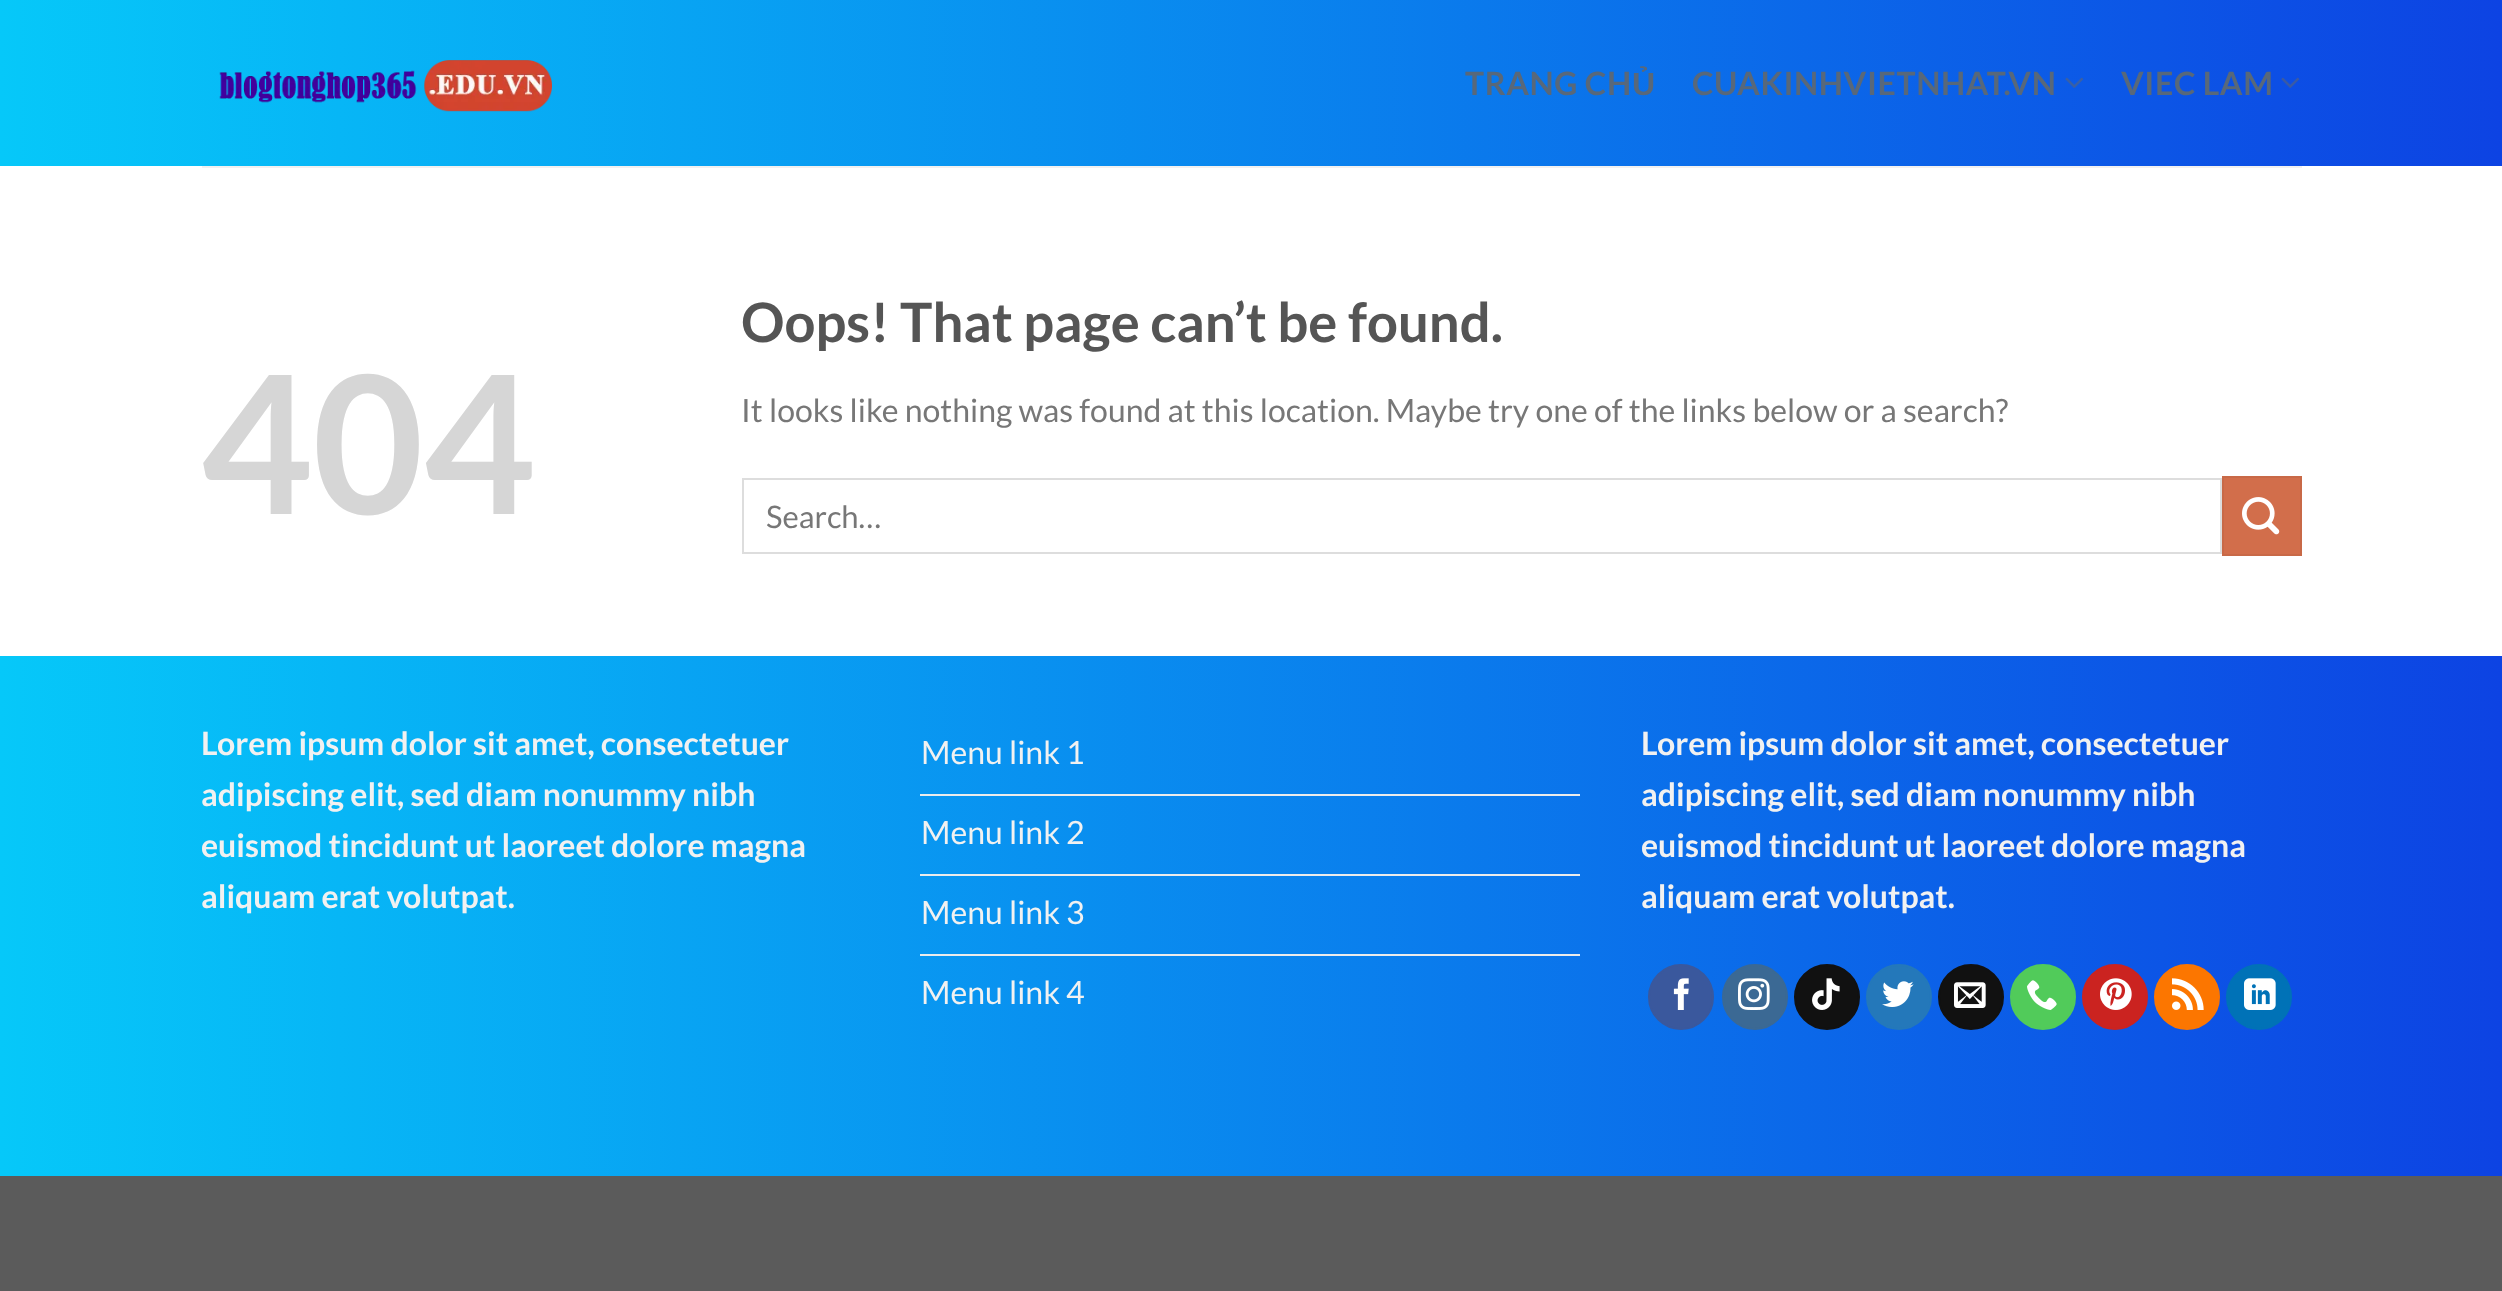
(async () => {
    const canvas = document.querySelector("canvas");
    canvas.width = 2502;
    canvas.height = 1291;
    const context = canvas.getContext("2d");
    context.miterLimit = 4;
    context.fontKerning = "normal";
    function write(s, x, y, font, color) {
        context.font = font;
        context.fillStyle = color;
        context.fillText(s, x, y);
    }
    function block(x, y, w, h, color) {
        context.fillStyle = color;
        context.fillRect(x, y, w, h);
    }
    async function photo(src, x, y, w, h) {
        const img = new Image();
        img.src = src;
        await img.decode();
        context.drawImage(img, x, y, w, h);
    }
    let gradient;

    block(0, 0, 2502, 1291, "rgb(91, 91, 91)");
    block(0, 166, 2502, 490, "rgb(255, 255, 255)");
    gradient = context.createLinearGradient(0, 83, 2502, 83);
    gradient.addColorStop(0, "rgb(6, 200, 249)");
    gradient.addColorStop(1, "rgb(13, 67, 227)");
    context.fillStyle = gradient;
    context.fillRect(0, 0, 2502, 166);
    await photo("media/1.png", 219, 60, 333, 52);
    context.letterSpacing = "0.6px";
    write("TRANG CH", 1465, 95, "bold 32px Lato", "rgb(88, 104, 122)");
    write("Ủ", 1632, 95, "bold 32px Liberation Sans", "rgb(88, 104, 122)");
    write("CUAKINHVIETNHAT.VN", 1692, 95, "bold 32px Lato", "rgb(88, 104, 122)");
    await photo("media/2.png", 2065, 77, 19, 11);
    write("VIEC LAM", 2121, 95, "bold 32px Lato", "rgb(88, 104, 122)");
    await photo("media/3.png", 2281, 77, 19, 11);
    block(202, 166, 2100, 2, "rgb(241, 241, 241)");
    context.letterSpacing = "0px";
    write("404", 201, 514, "bold 192px Lato", "rgb(214, 214, 214)");
    write("Oops! That page can’t be found.", 741, 342, "bold 54.4px Lato", "rgb(85, 85, 85)");
    write("It looks like nothing was found at this location. Maybe try one of the links below or a search?", 741, 422, "32px Lato", "rgb(119, 119, 119)");
    context.strokeStyle = "rgb(221, 221, 221)";
    context.lineWidth = 2;
    context.strokeRect(743, 479, 1478, 74);
    write("Search…", 766, 528, "31px Lato", "rgb(119, 119, 119)");
    context.fillStyle = "rgb(210, 110, 75)";
    context.beginPath();
    context.rect(2223, 477, 78, 78);
    context.fill();
    context.strokeStyle = "rgb(200, 105, 71)";
    context.stroke();
    await photo("media/4.png", 2242, 497, 38, 38);
    gradient = context.createLinearGradient(0, 916, 2502, 916);
    gradient.addColorStop(0, "rgb(6, 200, 249)");
    gradient.addColorStop(1, "rgb(13, 67, 227)");
    context.fillStyle = gradient;
    context.fillRect(0, 656, 2502, 520);
    write("Lorem ipsum dolor sit amet, consectetuer", 201, 755, "bold 32px Lato", "rgb(241, 241, 241)");
    write("adipiscing elit, sed diam nonummy nibh", 201, 806, "bold 32px Lato", "rgb(241, 241, 241)");
    write("euismod tincidunt ut laoreet dolore magna", 201, 857, "bold 32px Lato", "rgb(241, 241, 241)");
    write("aliquam erat volutpat.", 201, 908, "bold 32px Lato", "rgb(241, 241, 241)");
    block(920, 794, 660, 2, "rgb(236, 236, 236)");
    write("Menu link 1", 921, 764, "32px Lato", "rgb(241, 241, 241)");
    block(920, 874, 660, 2, "rgb(236, 236, 236)");
    write("Menu link 2", 921, 844, "32px Lato", "rgb(241, 241, 241)");
    block(920, 954, 660, 2, "rgb(236, 236, 236)");
    write("Menu link 3", 921, 924, "32px Lato", "rgb(241, 241, 241)");
    write("Menu link 4", 921, 1004, "32px Lato", "rgb(241, 241, 241)");
    write("Lorem ipsum dolor sit amet, consectetuer", 1641, 755, "bold 32px Lato", "rgb(241, 241, 241)");
    write("adipiscing elit, sed diam nonummy nibh", 1641, 806, "bold 32px Lato", "rgb(241, 241, 241)");
    write("euismod tincidunt ut laoreet dolore magna", 1641, 857, "bold 32px Lato", "rgb(241, 241, 241)");
    write("aliquam erat volutpat.", 1641, 908, "bold 32px Lato", "rgb(241, 241, 241)");
    context.fillStyle = "rgb(58, 88, 157)";
    context.beginPath();
    context.arc(1681, 997, 32, 0, Math.PI * 2);
    context.fill();
    context.strokeStyle = "rgb(58, 88, 157)";
    context.stroke();
    await photo("media/5.png", 1673, 978, 16, 32);
    context.fillStyle = "rgb(59, 105, 148)";
    context.beginPath();
    context.arc(1755, 997, 32, 0, Math.PI * 2);
    context.fill();
    context.strokeStyle = "rgb(59, 105, 148)";
    context.stroke();
    await photo("media/6.png", 1738, 978, 32, 32);
    context.fillStyle = "rgb(17, 17, 17)";
    context.beginPath();
    context.arc(1827, 997, 32, 0, Math.PI * 2);
    context.fill();
    context.strokeStyle = "rgb(17, 17, 17)";
    context.stroke();
    await photo("media/7.png", 1812, 978, 28, 32);
    context.fillStyle = "rgb(36, 120, 186)";
    context.beginPath();
    context.arc(1899, 997, 32, 0, Math.PI * 2);
    context.fill();
    context.strokeStyle = "rgb(36, 120, 186)";
    context.stroke();
    await photo("media/8.png", 1882, 981, 32, 26);
    context.fillStyle = "rgb(17, 17, 17)";
    context.beginPath();
    context.arc(1971, 997, 32, 0, Math.PI * 2);
    context.fill();
    context.strokeStyle = "rgb(17, 17, 17)";
    context.stroke();
    await photo("media/9.png", 1954, 982, 32, 26);
    context.fillStyle = "rgb(81, 203, 90)";
    context.beginPath();
    context.arc(2043, 997, 32, 0, Math.PI * 2);
    context.fill();
    context.strokeStyle = "rgb(81, 203, 90)";
    context.stroke();
    await photo("media/10.png", 2027, 980, 30, 30);
    context.fillStyle = "rgb(203, 35, 32)";
    context.beginPath();
    context.arc(2115, 997, 32, 0, Math.PI * 2);
    context.fill();
    context.strokeStyle = "rgb(203, 35, 32)";
    context.stroke();
    await photo("media/11.png", 2100, 978, 32, 32);
    context.fillStyle = "rgb(252, 118, 0)";
    context.beginPath();
    context.arc(2187, 997, 32, 0, Math.PI * 2);
    context.fill();
    context.strokeStyle = "rgb(252, 118, 0)";
    context.stroke();
    await photo("media/12.png", 2172, 978, 32, 32);
    context.fillStyle = "rgb(0, 114, 183)";
    context.beginPath();
    context.arc(2259, 997, 32, 0, Math.PI * 2);
    context.fill();
    context.strokeStyle = "rgb(0, 114, 183)";
    context.stroke();
    await photo("media/13.png", 2244, 978, 32, 32);
})();
